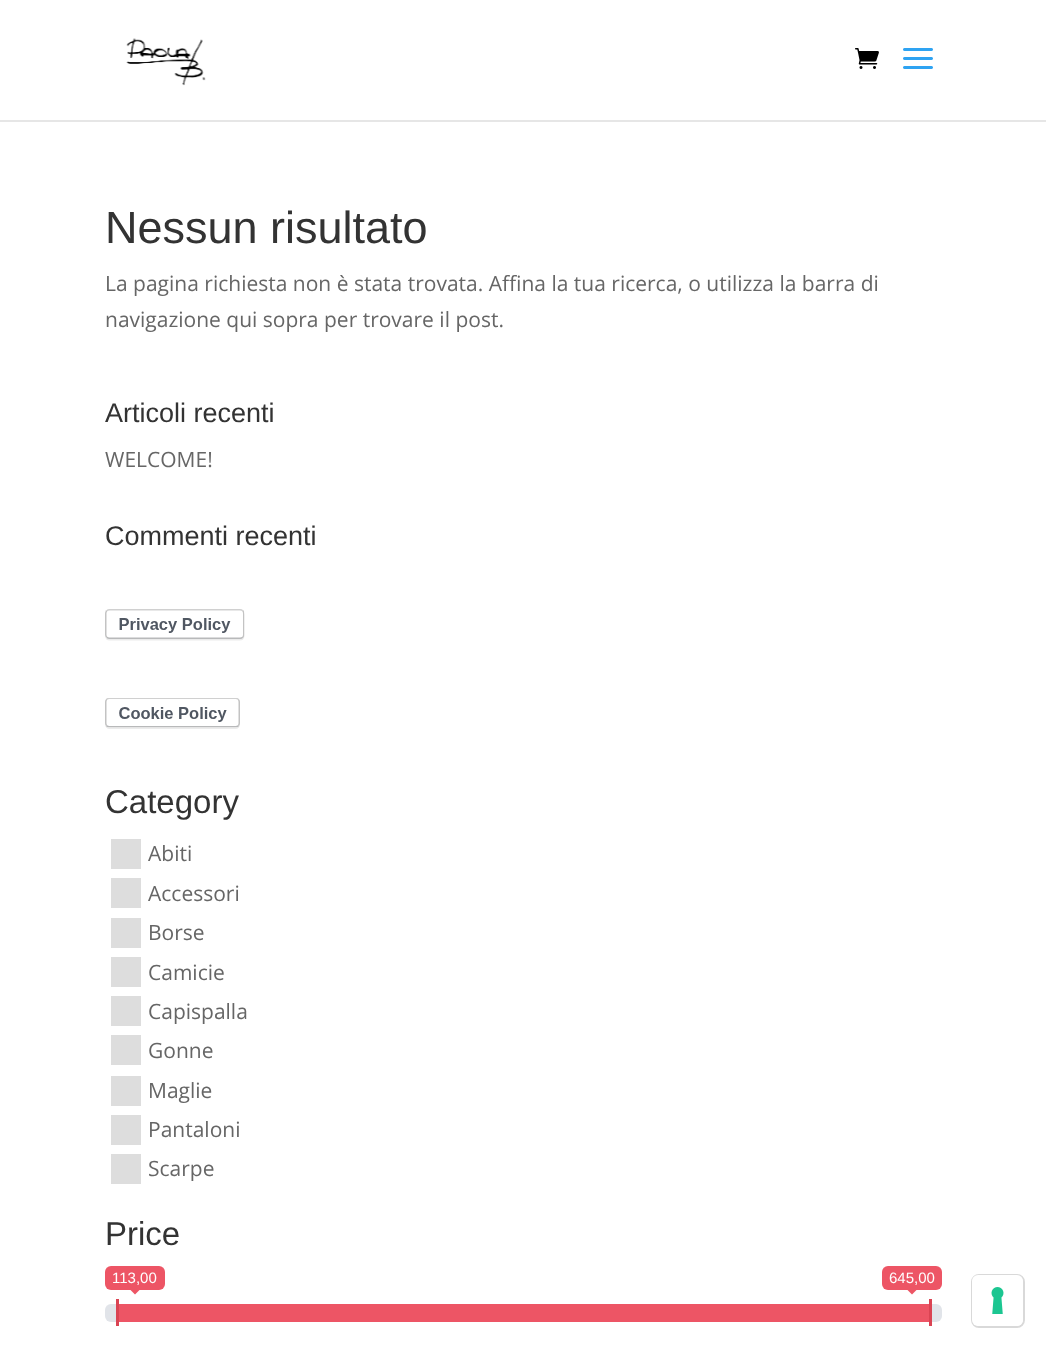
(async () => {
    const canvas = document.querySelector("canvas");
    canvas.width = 1046;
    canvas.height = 1349;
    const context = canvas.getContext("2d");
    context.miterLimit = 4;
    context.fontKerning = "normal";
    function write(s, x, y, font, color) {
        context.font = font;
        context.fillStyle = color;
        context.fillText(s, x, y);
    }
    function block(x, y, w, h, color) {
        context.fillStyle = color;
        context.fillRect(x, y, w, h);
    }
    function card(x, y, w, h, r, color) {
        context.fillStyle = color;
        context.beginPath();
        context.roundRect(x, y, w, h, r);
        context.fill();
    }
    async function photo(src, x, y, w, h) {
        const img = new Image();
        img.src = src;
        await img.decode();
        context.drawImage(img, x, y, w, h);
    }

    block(0, 0, 1046, 1349, "rgb(255, 255, 255)");
    block(0, 120, 1046, 2, "rgb(230, 230, 230)");
    await photo("media/1.png", 126, 38, 80, 48);
    await photo("media/2.png", 855, 48, 24, 21);
    await photo("media/3.png", 903, 48, 30, 21);
    write("Nessun risultato", 105, 243, "45px Liberation Sans", "rgb(51, 51, 51)");
    write("La pagina richiesta non è stata trovata. Affina la tua ricerca, o utilizza la barra di", 105, 291, "21px Open Sans", "rgb(102, 102, 102)");
    write("navigazione qui sopra per trovare il post.", 105, 327, "21px Open Sans", "rgb(102, 102, 102)");
    write("Articoli recenti", 105, 422, "27px Liberation Sans", "rgb(51, 51, 51)");
    write("WELCOME!", 105, 467, "21px Open Sans", "rgb(102, 102, 102)");
    write("Commenti recenti", 105, 545, "27px Liberation Sans", "rgb(51, 51, 51)");
    await photo("media/4.png", 105, 609, 140, 32);
    await photo("media/5.png", 105, 698, 135, 31);
    write("Category", 105, 813, "33px Liberation Sans", "rgb(51, 51, 51)");
    block(111, 839, 30, 30, "rgb(221, 221, 221)");
    write("Abiti", 148, 861, "21px Open Sans", "rgb(102, 102, 102)");
    block(111, 878, 30, 30, "rgb(221, 221, 221)");
    write("Accessori", 148, 901, "21px Open Sans", "rgb(102, 102, 102)");
    block(111, 918, 30, 30, "rgb(221, 221, 221)");
    write("Borse", 148, 940, "21px Open Sans", "rgb(102, 102, 102)");
    block(111, 957, 30, 30, "rgb(221, 221, 221)");
    write("Camicie", 148, 980, "21px Open Sans", "rgb(102, 102, 102)");
    block(111, 996, 30, 30, "rgb(221, 221, 221)");
    write("Capispalla", 148, 1019, "21px Open Sans", "rgb(102, 102, 102)");
    block(111, 1035, 30, 30, "rgb(221, 221, 221)");
    write("Gonne", 148, 1058, "21px Open Sans", "rgb(102, 102, 102)");
    block(111, 1076, 30, 30, "rgb(221, 221, 221)");
    write("Maglie", 148, 1098, "21px Open Sans", "rgb(102, 102, 102)");
    block(111, 1115, 30, 30, "rgb(221, 221, 221)");
    write("Pantaloni", 148, 1137, "21px Open Sans", "rgb(102, 102, 102)");
    block(111, 1154, 30, 30, "rgb(221, 221, 221)");
    write("Scarpe", 148, 1176, "21px Open Sans", "rgb(102, 102, 102)");
    write("Price", 105, 1245, "33px Liberation Sans", "rgb(51, 51, 51)");
    card(105, 1266, 60, 24, 6, "rgb(237, 85, 101)");
    write("113,00", 112, 1283, "15px Liberation Sans", "rgb(255, 255, 255)");
    context.fillStyle = "rgb(237, 85, 101)";
    context.beginPath();
    context.moveTo(130.5, 1290);
    context.lineTo(139.5, 1290);
    context.lineTo(135, 1294.5);
    context.closePath();
    context.fill();
    card(882, 1266, 60, 24, 6, "rgb(237, 85, 101)");
    write("645,00", 889, 1283, "15px Liberation Sans", "rgb(255, 255, 255)");
    context.fillStyle = "rgb(237, 85, 101)";
    context.beginPath();
    context.moveTo(907.5, 1290);
    context.lineTo(916.5, 1290);
    context.lineTo(912, 1294.5);
    context.closePath();
    context.fill();
    card(105, 1304, 837, 18, 6, "rgb(225, 228, 233)");
    block(116, 1299, 3, 27, "rgb(218, 68, 83)");
    block(119, 1304, 810, 18, "rgb(237, 85, 101)");
    block(929, 1299, 3, 27, "rgb(218, 68, 83)");
    context.beginPath();
    context.roundRect(972, 1275, 52, 52, 7);
    context.strokeStyle = "rgb(217, 217, 217)";
    context.lineWidth = 2;
    context.stroke();
    card(972, 1275, 51, 51, 6, "rgb(255, 255, 255)");
    await photo("media/6.png", 991, 1287, 13, 27);
})();
